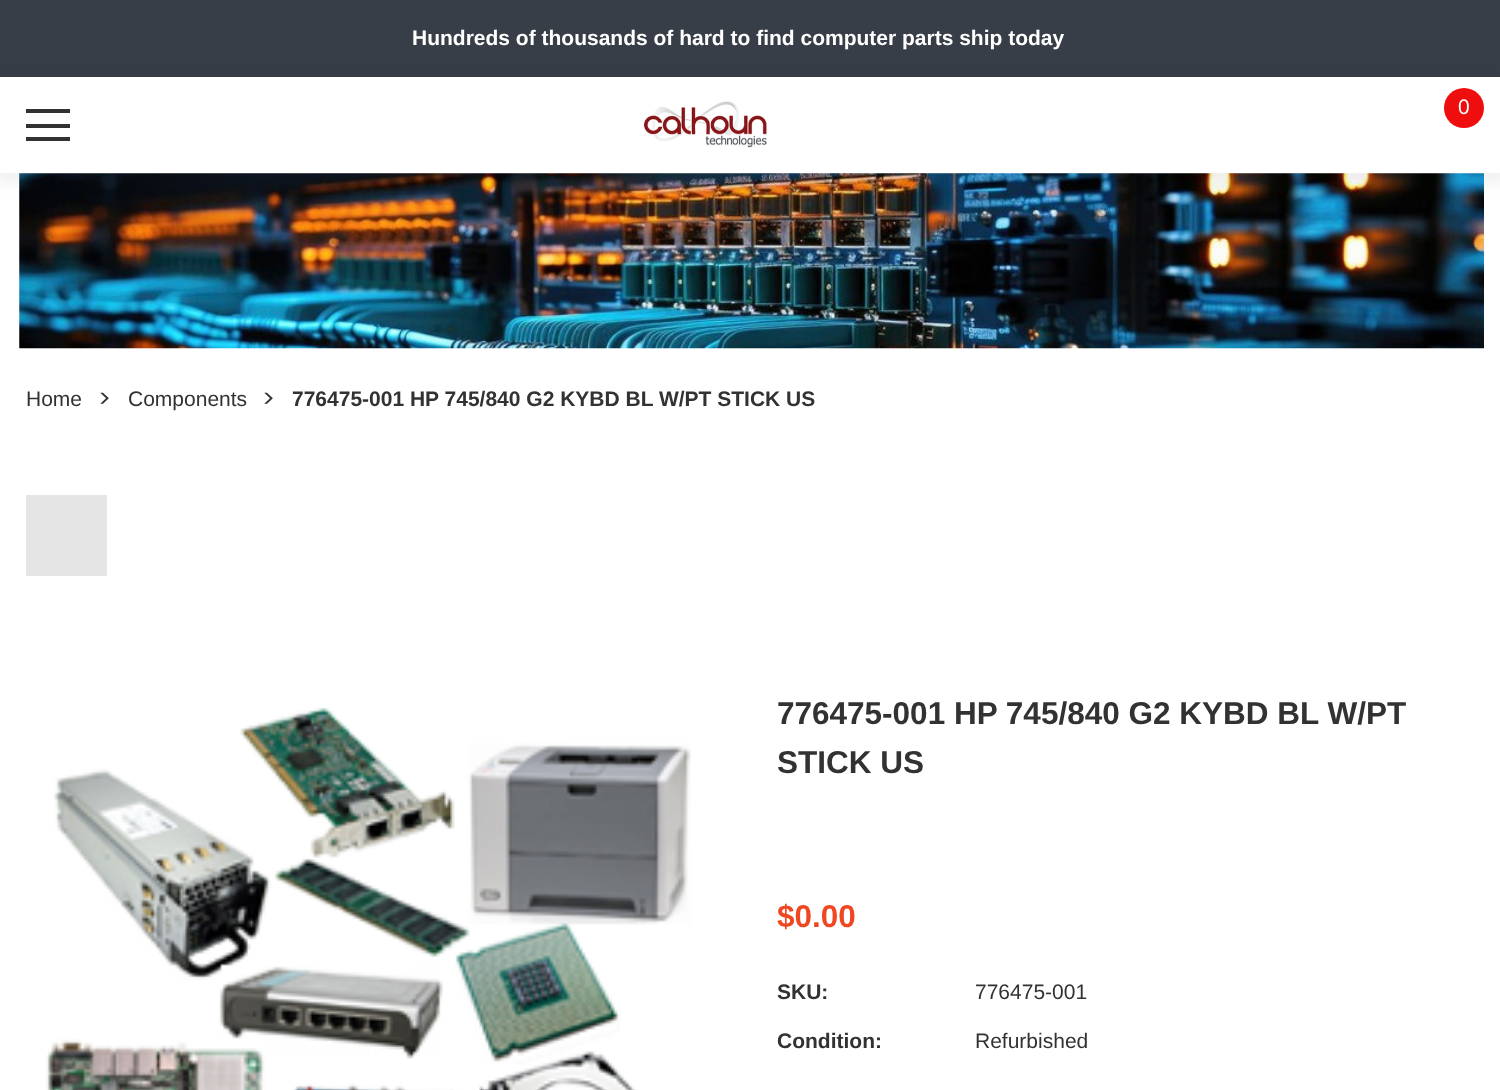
(async () => {
    const canvas = document.querySelector("canvas");
    canvas.width = 1500;
    canvas.height = 1090;
    const context = canvas.getContext("2d");
    context.miterLimit = 4;
    context.fontKerning = "normal";
    function write(s, x, y, font, color) {
        context.font = font;
        context.fillStyle = color;
        context.fillText(s, x, y);
    }
    function block(x, y, w, h, color) {
        context.fillStyle = color;
        context.fillRect(x, y, w, h);
    }
    async function photo(src, x, y, w, h) {
        const img = new Image();
        img.src = src;
        await img.decode();
        context.drawImage(img, x, y, w, h);
    }

    block(0, 0, 1500, 1090, "rgb(255, 255, 255)");
    block(0, 0, 1500, 77, "rgb(56, 62, 71)");
    write("Hundreds of thousands of hard to find computer parts ship today", 412, 45, "bold 21px Arimo", "rgb(255, 255, 255)");
    await photo("media/2.png", 19, 173, 1465, 176);
    context.fillStyle = "rgba(0, 0, 0, 0.05)";
    context.filter = "blur(7px)";
    context.beginPath();
    context.rect(-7, 74, 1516, 110);
    context.fill();
    context.filter = "none";
    block(0, 77, 1500, 96, "rgb(255, 255, 255)");
    block(26, 124, 44, 4, "rgb(50, 50, 50)");
    block(26, 109, 44, 4, "rgb(50, 50, 50)");
    block(26, 137, 44, 4, "rgb(50, 50, 50)");
    await photo("media/1.png", 643, 101, 124, 47);
    context.fillStyle = "rgb(238, 14, 14)";
    context.beginPath();
    context.arc(1464, 108, 20, 0, Math.PI * 2);
    context.fill();
    write("0", 1458, 114, "21px Arimo", "rgb(255, 255, 255)");
    write("Home", 26, 406, "21px Arimo", "rgb(50, 50, 50)");
    write(">", 98, 407, "24px Poppins", "rgb(50, 50, 50)");
    write("Components", 128, 406, "21px Arimo", "rgb(50, 50, 50)");
    write(">", 262, 407, "24px Poppins", "rgb(50, 50, 50)");
    write("776475-001 HP 745/840 G2 KYBD BL W/PT STICK US", 292, 406, "bold 21px Arimo", "rgb(50, 50, 50)");
    block(26, 495, 81, 81, "rgb(229, 229, 229)");
    await photo("media/3.png", 46, 707, 645, 383);
    write("776475-001 HP 745/840 G2 KYBD BL W/PT", 777, 724, "bold 31.5px Arimo", "rgb(50, 50, 50)");
    write("STICK US", 777, 773, "bold 31.5px Arimo", "rgb(50, 50, 50)");
    write("$0.00", 777, 927, "bold 31.5px Arimo", "rgb(240, 71, 35)");
    write("SKU:", 777, 999, "bold 21px Arimo", "rgb(50, 50, 50)");
    write("776475-001", 975, 999, "21px Arimo", "rgb(50, 50, 50)");
    write("Condition:", 777, 1048, "bold 21px Arimo", "rgb(50, 50, 50)");
    write("Refurbished", 975, 1048, "21px Arimo", "rgb(50, 50, 50)");
})();
